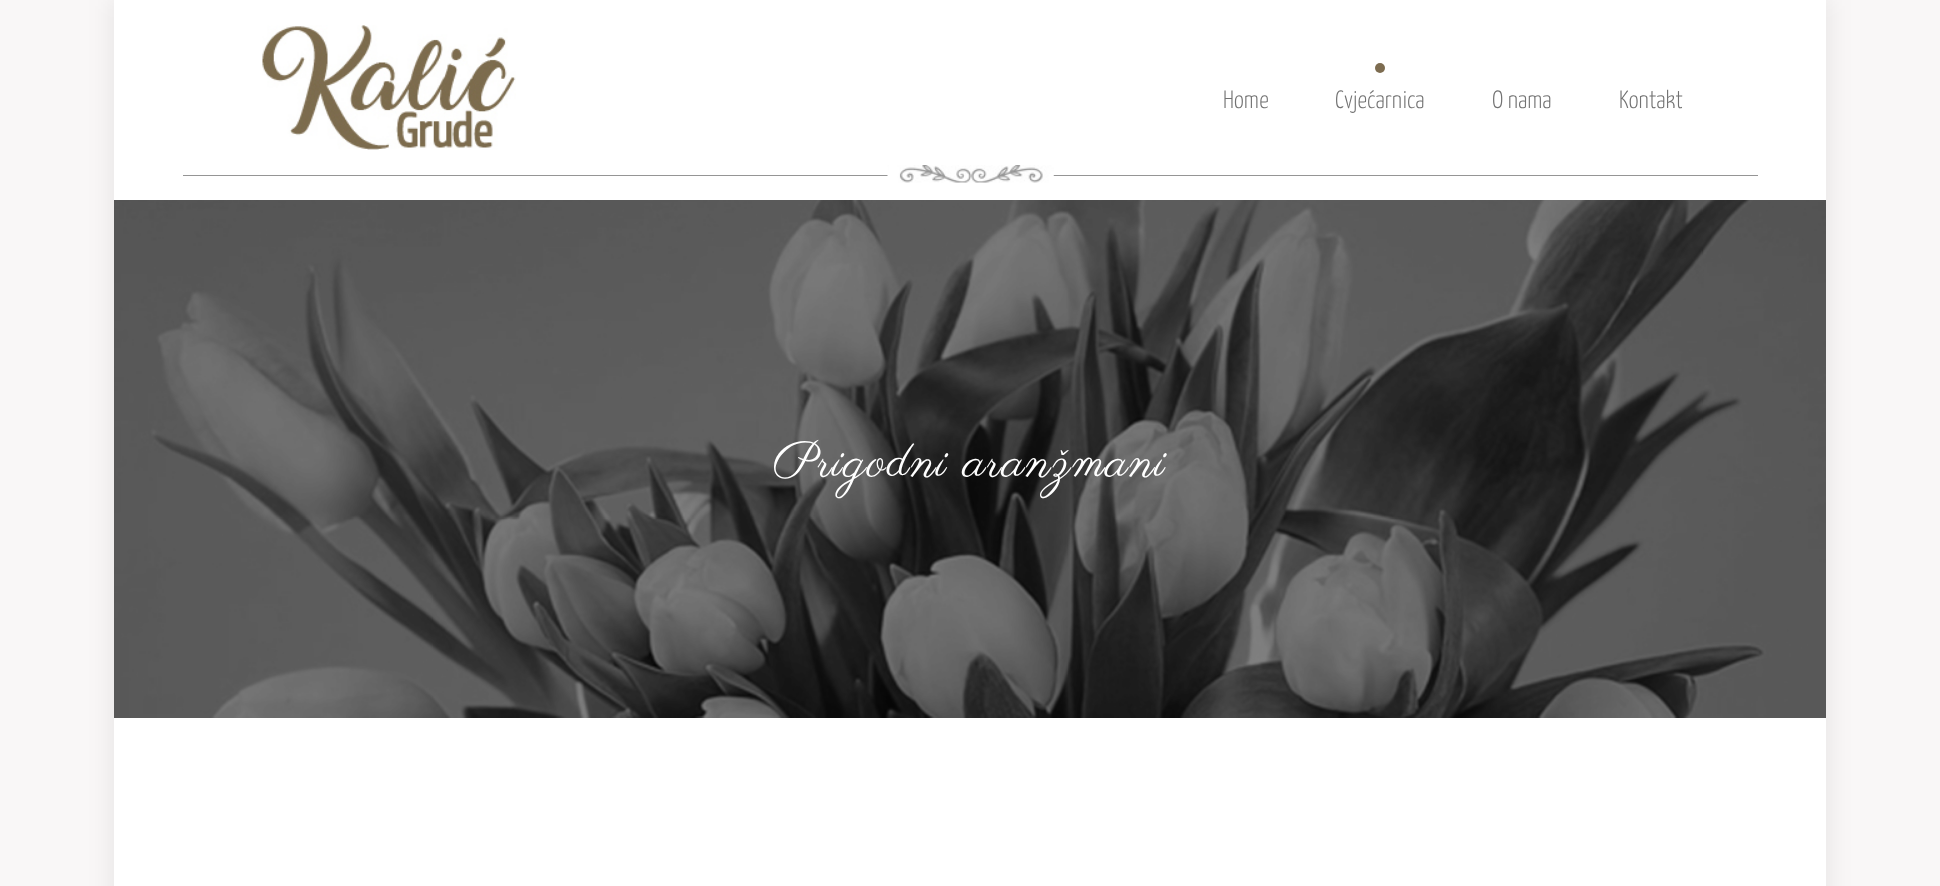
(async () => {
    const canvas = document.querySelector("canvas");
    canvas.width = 1940;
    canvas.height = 886;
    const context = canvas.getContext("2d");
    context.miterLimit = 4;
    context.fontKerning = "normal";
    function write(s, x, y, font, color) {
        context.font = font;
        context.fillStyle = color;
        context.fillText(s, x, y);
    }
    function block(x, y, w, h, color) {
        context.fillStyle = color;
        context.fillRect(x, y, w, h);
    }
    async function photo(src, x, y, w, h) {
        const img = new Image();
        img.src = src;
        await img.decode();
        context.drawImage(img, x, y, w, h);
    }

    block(0, 0, 1940, 886, "rgb(249, 247, 247)");
    context.fillStyle = "rgba(0, 0, 0, 0.07)";
    context.filter = "blur(12.5px)";
    context.beginPath();
    context.rect(111, -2, 1718, 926);
    context.fill();
    context.filter = "none";
    block(114, 0, 1712, 886, "rgb(255, 255, 255)");
    await photo("media/1.png", 262, 25, 254, 125);
    write("Home", 1223, 108, "200 25px Yanone Kaffeesatz", "rgb(114, 114, 114)");
    context.fillStyle = "rgb(125, 108, 80)";
    context.beginPath();
    context.arc(1380, 68, 5, 0, Math.PI * 2);
    context.fill();
    write("Cvjećarnica", 1335, 108, "200 25px Yanone Kaffeesatz", "rgb(114, 114, 114)");
    write("O nama", 1492, 108, "200 25px Yanone Kaffeesatz", "rgb(114, 114, 114)");
    write("Kontakt", 1619, 108, "200 25px Yanone Kaffeesatz", "rgb(114, 114, 114)");
    block(183, 175, 1575, 1, "rgb(149, 149, 149)");
    await photo("media/2.png", 887, 165, 167, 18);
    await photo("media/3.png", 114, 200, 1712, 518);
    context.letterSpacing = "1.25px";
    write("Prigodni aranžmani", 773, 476, "50px Parisienne", "rgb(255, 255, 255)");
})();
